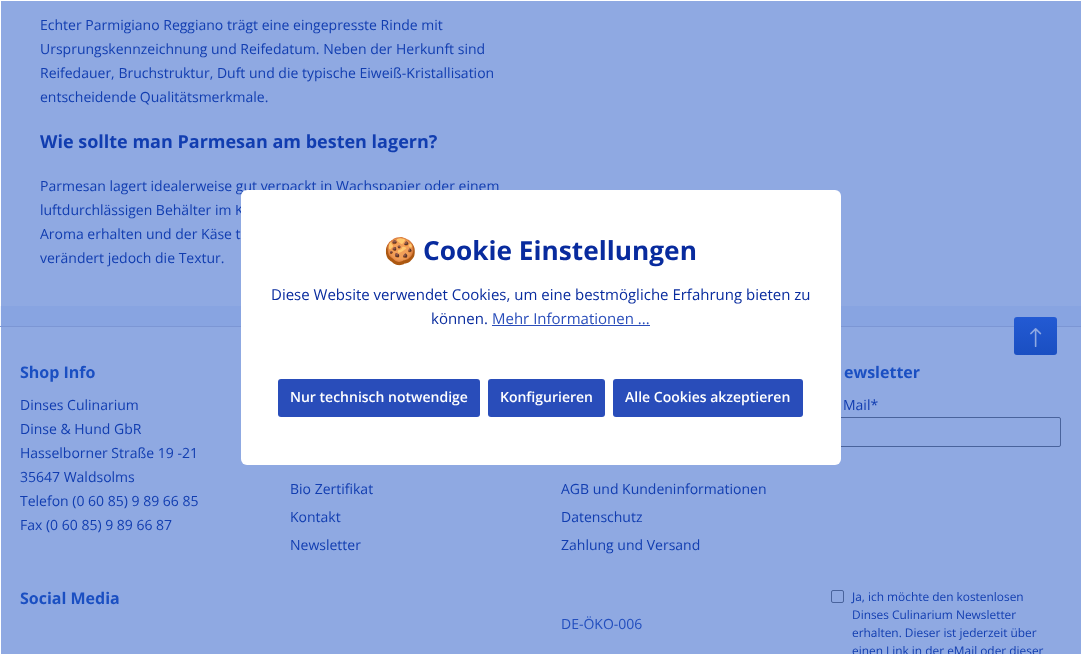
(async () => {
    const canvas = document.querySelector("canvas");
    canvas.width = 1081;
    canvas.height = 654;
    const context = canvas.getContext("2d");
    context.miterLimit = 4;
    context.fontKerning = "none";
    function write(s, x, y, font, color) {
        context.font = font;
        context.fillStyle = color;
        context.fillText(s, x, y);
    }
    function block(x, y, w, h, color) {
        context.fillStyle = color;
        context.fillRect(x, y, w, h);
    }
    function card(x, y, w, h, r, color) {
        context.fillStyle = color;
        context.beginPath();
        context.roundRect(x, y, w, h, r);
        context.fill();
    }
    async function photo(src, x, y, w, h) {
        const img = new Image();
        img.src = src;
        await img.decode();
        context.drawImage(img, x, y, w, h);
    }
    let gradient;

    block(0, 0, 1081, 654, "rgb(255, 255, 255)");
    block(1, 327, 1080, 327, "rgb(143, 169, 226)");
    block(0, 306, 1, 20, "rgb(241, 245, 254)");
    block(1, 306, 1080, 20, "rgb(136, 164, 225)");
    block(1, 1, 1080, 305, "rgb(143, 169, 226)");
    write("Echter Parmigiano Reggiano trägt eine eingepresste Rinde mit", 40, 30, "14px Open Sans", "rgb(17, 61, 176)");
    write("Ursprungskennzeichnung und Reifedatum. Neben der Herkunft sind", 40, 54, "14px Open Sans", "rgb(17, 61, 176)");
    write("Reifedauer, Bruchstruktur, Duft und die typische Eiweiß-Kristallisation", 40, 78, "14px Open Sans", "rgb(17, 61, 176)");
    write("entscheidende Qualitätsmerkmale.", 40, 102, "14px Open Sans", "rgb(17, 61, 176)");
    write("Wie sollte man Parmesan am besten lagern?", 40, 148, "bold 18px Open Sans", "rgb(17, 61, 176)");
    write("Parmesan lagert idealerweise gut verpackt in Wachspapier oder einem", 40, 191, "14px Open Sans", "rgb(17, 61, 176)");
    write("luftdurchlässigen Behälter im K", 40, 215, "14px Open Sans", "rgb(17, 61, 176)");
    write("Aroma erhalten und der Käse t", 40, 239, "14px Open Sans", "rgb(17, 61, 176)");
    write("verändert jedoch die Textur.", 40, 263, "14px Open Sans", "rgb(17, 61, 176)");
    block(0, 326, 1081, 1, "rgb(124, 150, 212)");
    context.beginPath();
    context.roundRect(831.5, 417.5, 229, 29, 1.5);
    context.strokeStyle = "rgb(73, 99, 156)";
    context.stroke();
    card(241, 190, 600, 275, 6, "rgb(255, 255, 255)");
    write("🍪", 384, 260, "bold 26.25px Noto Color Emoji", "rgb(8, 43, 158)");
    write("Cookie Einstellungen", 423, 260, "bold 26.25px Open Sans", "rgb(8, 43, 158)");
    write("Diese Website verwendet Cookies, um eine bestmögliche Erfahrung bieten zu", 271, 300, "15px Open Sans", "rgb(8, 43, 158)");
    write("können.", 431, 324, "15px Open Sans", "rgb(8, 43, 158)");
    write("Mehr Informationen ...", 492, 324, "15px Open Sans", "rgb(41, 77, 186)");
    block(492, 325, 158, 1, "rgb(41, 77, 186)");
    card(278, 379, 202, 38, 3, "rgb(41, 77, 186)");
    write("Nur technisch notwendige", 290, 402, "600 14px Open Sans", "rgb(255, 255, 255)");
    card(488, 379, 117, 38, 3, "rgb(41, 77, 186)");
    write("Konfigurieren", 500, 402, "600 14px Open Sans", "rgb(255, 255, 255)");
    card(613, 379, 190, 38, 3, "rgb(41, 77, 186)");
    write("Alle Cookies akzeptieren", 625, 402, "600 14px Open Sans", "rgb(255, 255, 255)");
    gradient = context.createLinearGradient(1036, 317, 1036, 355);
    gradient.addColorStop(0, "rgb(35, 90, 211)");
    gradient.addColorStop(1, "rgb(26, 79, 194)");
    context.fillStyle = gradient;
    context.beginPath();
    context.roundRect(1014, 317, 43, 38, 3);
    context.fill();
    await photo("media/1.png", 1030, 328, 12, 19);
    write("Shop Info", 20, 378, "bold 16px Open Sans", "rgb(26, 79, 194)");
    write("Dinses Culinarium", 20, 410, "14px Open Sans", "rgb(17, 61, 176)");
    write("Dinse & Hund GbR", 20, 434, "14px Open Sans", "rgb(17, 61, 176)");
    write("Hasselborner Straße 19 -21", 20, 458, "14px Open Sans", "rgb(17, 61, 176)");
    write("35647 Waldsolms", 20, 482, "14px Open Sans", "rgb(17, 61, 176)");
    write("Telefon (0 60 85) 9 89 66 85", 20, 506, "14px Open Sans", "rgb(17, 61, 176)");
    write("Fax (0 60 85) 9 89 66 87", 20, 530, "14px Open Sans", "rgb(17, 61, 176)");
    write("Social Media", 20, 604, "bold 16px Open Sans", "rgb(26, 79, 194)");
    write("Bio Zertifikat", 290, 494, "14px Open Sans", "rgb(17, 61, 176)");
    write("Kontakt", 290, 522, "14px Open Sans", "rgb(17, 61, 176)");
    write("Newsletter", 290, 550, "14px Open Sans", "rgb(17, 61, 176)");
    write("AGB und Kundeninformationen", 561, 494, "14px Open Sans", "rgb(17, 61, 176)");
    write("Datenschutz", 561, 522, "14px Open Sans", "rgb(17, 61, 176)");
    write("Zahlung und Versand", 561, 550, "14px Open Sans", "rgb(17, 61, 176)");
    write("DE-ÖKO-006", 561, 629, "14px Open Sans", "rgb(34, 78, 190)");
    write("ewsletter", 844, 378, "bold 16px Open Sans", "rgb(26, 79, 194)");
    write("Mail*", 843, 410, "14px Open Sans", "rgb(17, 61, 176)");
    context.beginPath();
    context.roundRect(831.5, 590.5, 12, 12, 1.5);
    context.stroke();
    write("Ja, ich möchte den kostenlosen", 852, 601, "11.9px Open Sans", "rgb(17, 61, 176)");
    write("Dinses Culinarium Newsletter", 852, 619, "11.9px Open Sans", "rgb(17, 61, 176)");
    write("erhalten. Dieser ist jederzeit über", 852, 637, "11.9px Open Sans", "rgb(17, 61, 176)");
    write("einen Link in der eMail oder dieser", 852, 655, "11.9px Open Sans", "rgb(17, 61, 176)");
})();
